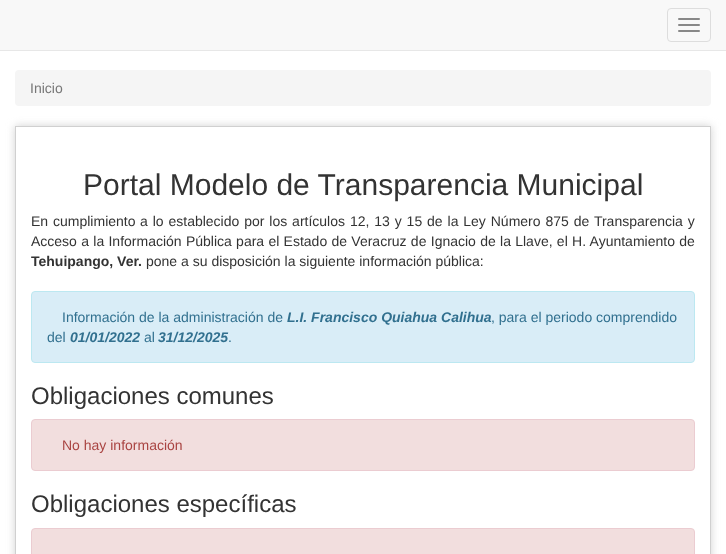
(async () => {
    const canvas = document.querySelector("canvas");
    canvas.width = 726;
    canvas.height = 554;
    const context = canvas.getContext("2d");
    context.miterLimit = 4;
    context.fontKerning = "normal";
    function write(s, x, y, font, color) {
        context.font = font;
        context.fillStyle = color;
        context.fillText(s, x, y);
    }
    function block(x, y, w, h, color) {
        context.fillStyle = color;
        context.fillRect(x, y, w, h);
    }
    function card(x, y, w, h, r, color) {
        context.fillStyle = color;
        context.beginPath();
        context.roundRect(x, y, w, h, r);
        context.fill();
    }

    block(0, 0, 726, 554, "rgb(255, 255, 255)");
    block(0, 0, 726, 50, "rgb(248, 248, 248)");
    block(0, 50, 726, 1, "rgb(231, 231, 231)");
    context.beginPath();
    context.roundRect(667.5, 8.5, 43, 33, 3.5);
    context.strokeStyle = "rgb(221, 221, 221)";
    context.stroke();
    card(678, 18, 22, 2, 1, "rgb(136, 136, 136)");
    card(678, 24, 22, 2, 1, "rgb(136, 136, 136)");
    card(678, 30, 22, 2, 1, "rgb(136, 136, 136)");
    card(15, 70, 696, 36, 4, "rgb(245, 245, 245)");
    write("Inicio", 30, 93, "14px Liberation Sans", "rgb(119, 119, 119)");
    context.save();
    context.beginPath();
    context.moveTo(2, 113);
    context.lineTo(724, 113);
    context.lineTo(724, 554);
    context.lineTo(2, 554);
    context.closePath();
    context.moveTo(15, 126);
    context.lineTo(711, 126);
    context.lineTo(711, 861);
    context.lineTo(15, 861);
    context.closePath();
    context.clip("evenodd");
    context.fillStyle = "rgb(208, 208, 208)";
    context.filter = "blur(4px)";
    context.beginPath();
    context.rect(15, 126, 696, 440);
    context.fill();
    context.filter = "none";
    context.restore();
    context.strokeStyle = "rgb(208, 208, 208)";
    context.strokeRect(15.5, 126.5, 695, 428);
    write("Portal Modelo de Transparencia Municipal", 83, 195, "30px Liberation Sans", "rgb(51, 51, 51)");
    context.wordSpacing = "1px";
    write("En cumplimiento", 31, 226, "14px Liberation Sans", "rgb(51, 51, 51)");
    write("a lo establecido por los artículos 12, 13 y 15 de la Ley Número 875 de Transparencia y", 140, 226, "14px Liberation Sans", "rgb(51, 51, 51)");
    context.wordSpacing = "0.4px";
    write("Acceso a la Información Pública para el Estado de Veracruz de Ignacio de la Llave, el H. Ayuntamiento de", 31, 246, "14px Liberation Sans", "rgb(51, 51, 51)");
    context.wordSpacing = "0px";
    write("Tehuipango, Ver.", 31, 266, "bold 14px Liberation Sans", "rgb(51, 51, 51)");
    write("pone a su disposición la siguiente información pública:", 146, 266, "14px Liberation Sans", "rgb(51, 51, 51)");
    context.fillStyle = "rgb(217, 237, 247)";
    context.beginPath();
    context.roundRect(31.5, 291.5, 663, 71, 3.5);
    context.fill();
    context.strokeStyle = "rgb(188, 232, 241)";
    context.stroke();
    write("Información de la administración de", 62, 322, "14px Liberation Sans", "rgb(49, 112, 143)");
    write("L.I. Francisco Quiahua Calihua", 287, 322, "italic bold 14px Liberation Sans", "rgb(49, 112, 143)");
    write(", para el periodo comprendido", 491, 322, "14px Liberation Sans", "rgb(49, 112, 143)");
    write("del", 47, 342, "14px Liberation Sans", "rgb(49, 112, 143)");
    write("01/01/2022", 70, 342, "italic bold 14px Liberation Sans", "rgb(49, 112, 143)");
    write("al", 144, 342, "14px Liberation Sans", "rgb(49, 112, 143)");
    write("31/12/2025", 158, 342, "italic bold 14px Liberation Sans", "rgb(49, 112, 143)");
    write(".", 228, 342, "14px Liberation Sans", "rgb(49, 112, 143)");
    write("Obligaciones comunes", 31, 404, "24px Liberation Sans", "rgb(51, 51, 51)");
    context.fillStyle = "rgb(242, 222, 222)";
    context.beginPath();
    context.roundRect(31.5, 419.5, 663, 51, 3.5);
    context.fill();
    context.strokeStyle = "rgb(235, 204, 209)";
    context.stroke();
    write("No hay información", 62, 450, "14px Liberation Sans", "rgb(169, 68, 66)");
    write("Obligaciones específicas", 31, 512, "24px Liberation Sans", "rgb(51, 51, 51)");
    context.fillStyle = "rgb(242, 222, 222)";
    context.beginPath();
    context.roundRect(31.5, 528.5, 663, 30, 3.5);
    context.fill();
    context.stroke();
})();
